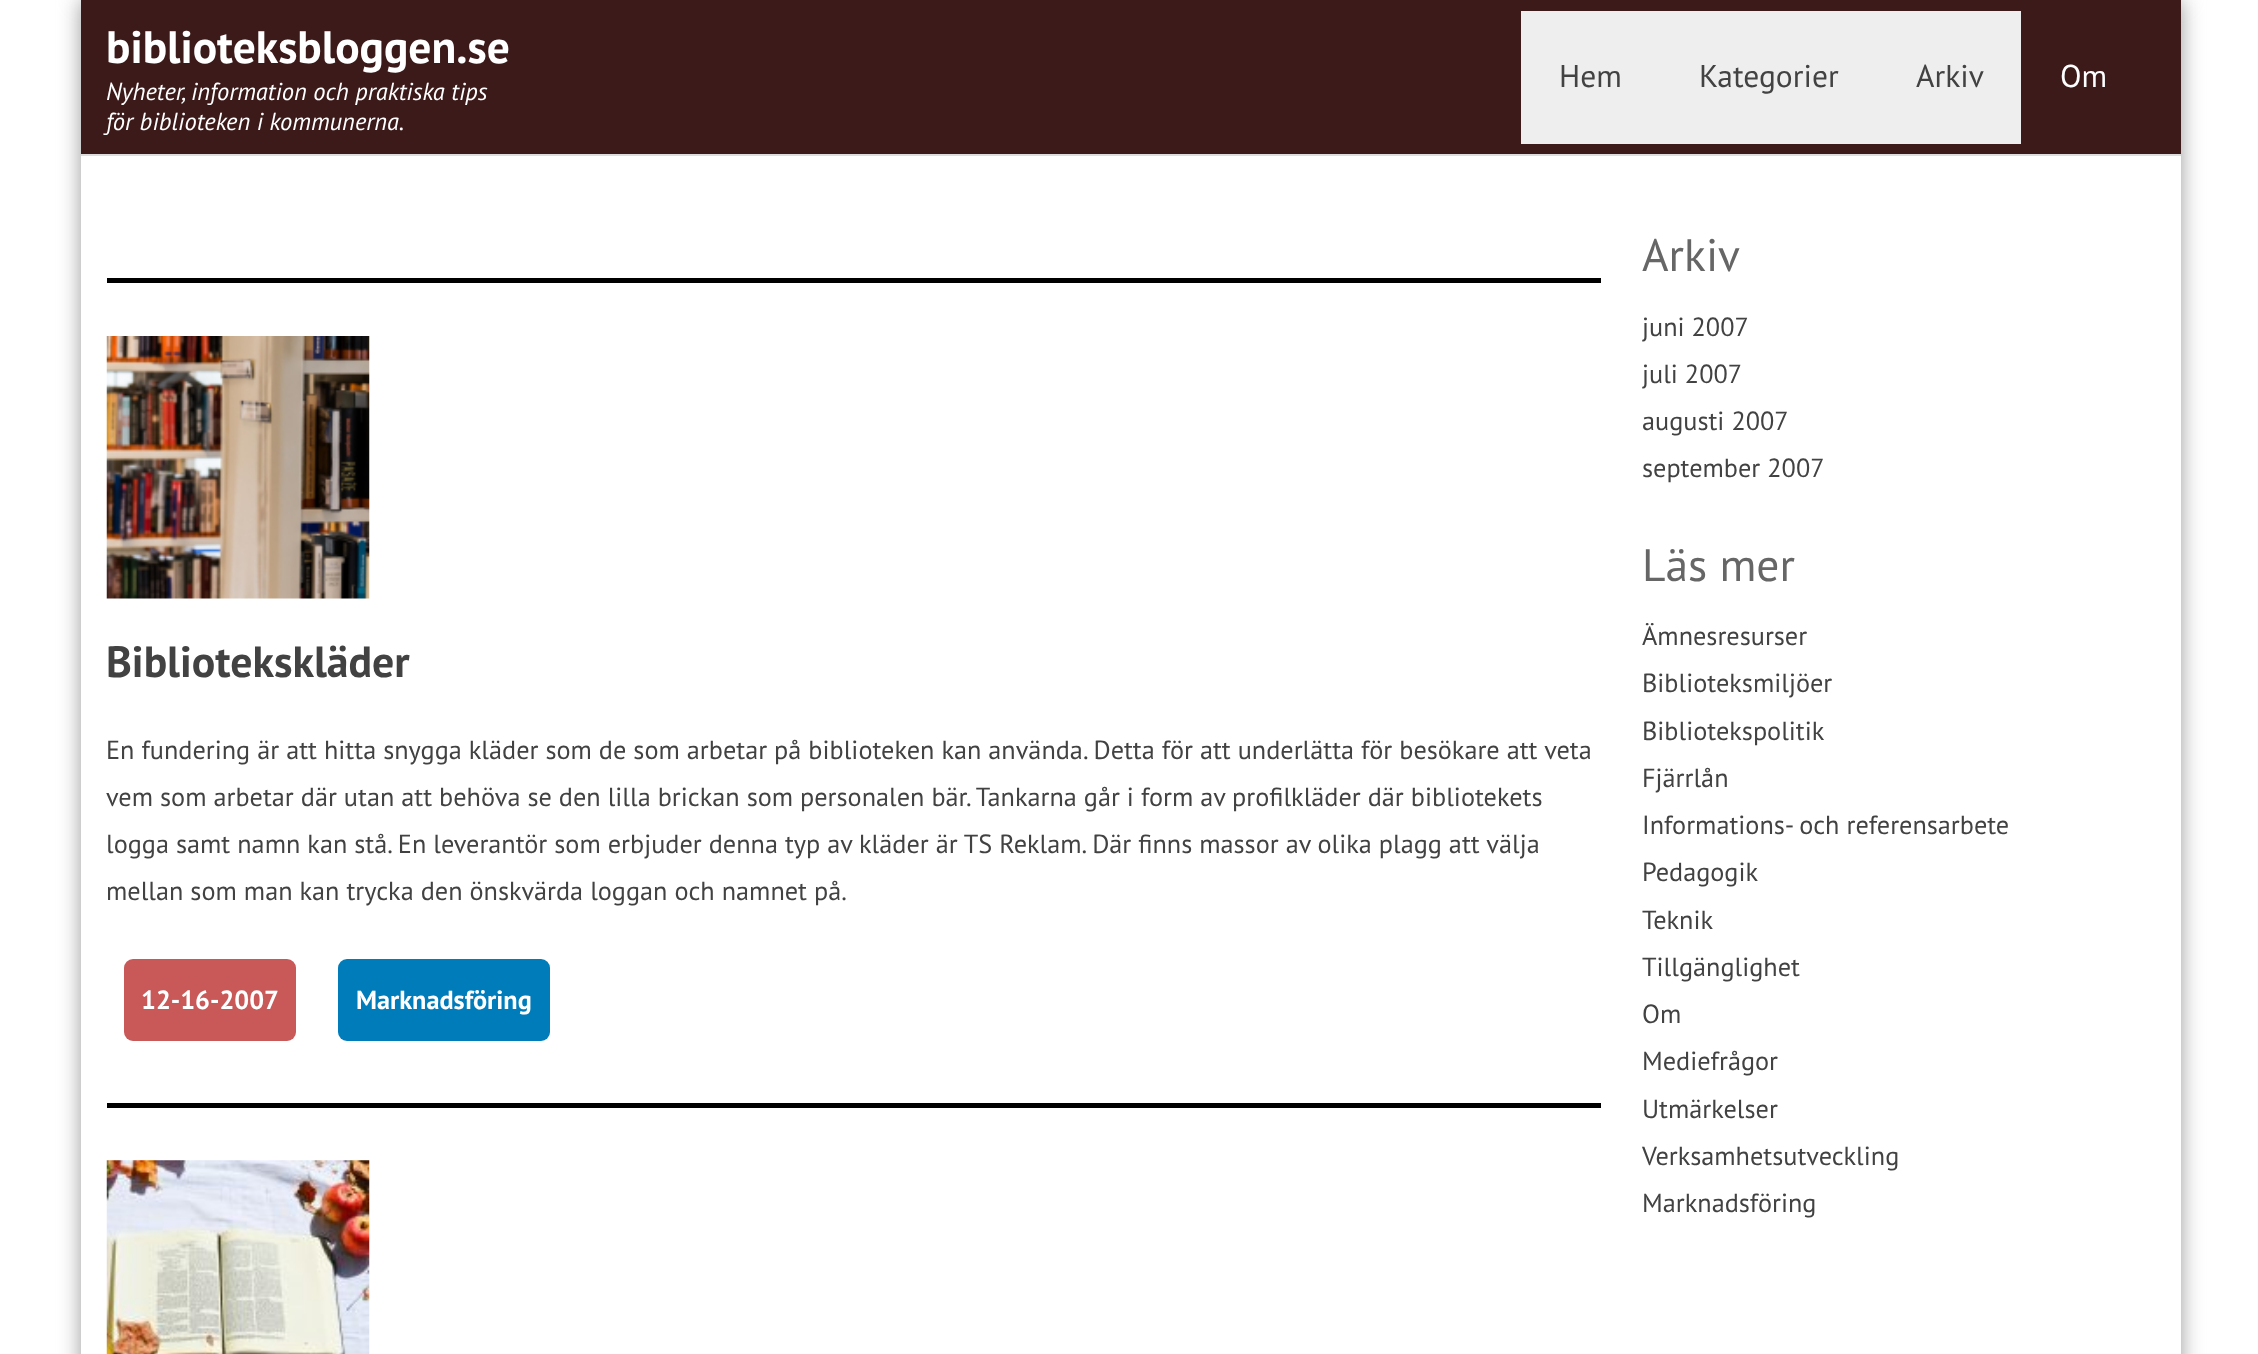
(async () => {
    const canvas = document.querySelector("canvas");
    canvas.width = 2258;
    canvas.height = 1354;
    const context = canvas.getContext("2d");
    context.miterLimit = 4;
    context.fontKerning = "normal";
    function write(s, x, y, font, color) {
        context.font = font;
        context.fillStyle = color;
        context.fillText(s, x, y);
    }
    function block(x, y, w, h, color) {
        context.fillStyle = color;
        context.fillRect(x, y, w, h);
    }
    function card(x, y, w, h, r, color) {
        context.fillStyle = color;
        context.beginPath();
        context.roundRect(x, y, w, h, r);
        context.fill();
    }
    async function photo(src, x, y, w, h) {
        const img = new Image();
        img.src = src;
        await img.decode();
        context.drawImage(img, x, y, w, h);
    }

    block(0, 0, 2258, 1354, "rgb(255, 255, 255)");
    context.save();
    context.beginPath();
    context.moveTo(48, 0);
    context.lineTo(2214, 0);
    context.lineTo(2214, 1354);
    context.lineTo(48, 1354);
    context.closePath();
    context.moveTo(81, 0);
    context.lineTo(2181, 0);
    context.lineTo(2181, 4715);
    context.lineTo(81, 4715);
    context.closePath();
    context.clip("evenodd");
    context.fillStyle = "rgb(153, 153, 153)";
    context.filter = "blur(10.5px)";
    context.beginPath();
    context.rect(81, 0, 2100, 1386);
    context.fill();
    context.filter = "none";
    context.restore();
    block(81, 0, 2100, 154, "rgba(195, 69, 71, 0.9)");
    block(81, 154, 2100, 2, "rgb(221, 221, 221)");
    block(81, 0, 2100, 154, "rgba(0, 0, 0, 0.7)");
    write("biblioteksbloggen.se", 106, 63, "bold 45.5px PT Sans", "rgb(255, 255, 255)");
    write("Nyheter, information och praktiska tips", 106, 100, "italic 24.5px PT Sans", "rgb(255, 255, 255)");
    write("för biblioteken i kommunerna.", 106, 130, "italic 24.5px PT Sans", "rgb(255, 255, 255)");
    block(1521, 11, 500, 133, "rgb(238, 238, 238)");
    write("Hem", 1559, 87, "31.5px PT Sans", "rgb(66, 66, 66)");
    write("Kategorier", 1699, 87, "31.5px PT Sans", "rgb(66, 66, 66)");
    write("Arkiv", 1916, 87, "31.5px PT Sans", "rgb(66, 66, 66)");
    write("Om", 2060, 87, "31.5px PT Sans", "rgb(255, 255, 255)");
    block(107, 278, 1494, 5, "rgb(0, 0, 0)");
    await photo("media/1.png", 106, 336, 264, 263);
    write("Bibliotekskläder", 106, 677, "bold 43.75px PT Sans", "rgb(66, 66, 66)");
    write("En fundering är att hitta snygga kläder som de som arbetar på biblioteken kan använda. Detta för att underlätta för besökare att veta", 106, 759, "26.25px PT Sans", "rgb(66, 66, 66)");
    write("vem som arbetar där utan att behöva se den lilla brickan som personalen bär. Tankarna går i form av profilkläder där bibliotekets", 106, 806, "26.25px PT Sans", "rgb(66, 66, 66)");
    write("logga samt namn kan stå. En leverantör som erbjuder denna typ av kläder är TS Reklam. Där finns massor av olika plagg att välja", 106, 853, "26.25px PT Sans", "rgb(66, 66, 66)");
    write("mellan som man kan trycka den önskvärda loggan och namnet på.", 106, 900, "26.25px PT Sans", "rgb(66, 66, 66)");
    card(124, 959, 172, 82, 9, "rgb(201, 88, 89)");
    write("12-16-2007", 141, 1009, "bold 26.25px PT Sans", "rgb(255, 255, 255)");
    card(338, 959, 212, 82, 9, "rgb(0, 124, 186)");
    write("Marknadsföring", 356, 1009, "bold 26.25px PT Sans", "rgb(255, 255, 255)");
    block(107, 1103, 1494, 5, "rgb(0, 0, 0)");
    await photo("media/2.png", 106, 1160, 264, 194);
    write("Arkiv", 1642, 271, "45.5px PT Sans", "rgb(102, 102, 102)");
    write("juni 2007", 1642, 336, "26.25px PT Sans", "rgb(66, 66, 66)");
    write("juli 2007", 1642, 383, "26.25px PT Sans", "rgb(66, 66, 66)");
    write("augusti 2007", 1642, 430, "26.25px PT Sans", "rgb(66, 66, 66)");
    write("september 2007", 1642, 477, "26.25px PT Sans", "rgb(66, 66, 66)");
    write("Läs mer", 1642, 581, "45.5px PT Sans", "rgb(102, 102, 102)");
    write("Ämnesresurser", 1642, 645, "26.25px PT Sans", "rgb(66, 66, 66)");
    write("Biblioteksmiljöer", 1642, 692, "26.25px PT Sans", "rgb(66, 66, 66)");
    write("Bibliotekspolitik", 1642, 740, "26.25px PT Sans", "rgb(66, 66, 66)");
    write("Fjärrlån", 1642, 787, "26.25px PT Sans", "rgb(66, 66, 66)");
    write("Informations- och referensarbete", 1642, 834, "26.25px PT Sans", "rgb(66, 66, 66)");
    write("Pedagogik", 1642, 881, "26.25px PT Sans", "rgb(66, 66, 66)");
    write("Teknik", 1642, 929, "26.25px PT Sans", "rgb(66, 66, 66)");
    write("Tillgänglighet", 1642, 976, "26.25px PT Sans", "rgb(66, 66, 66)");
    write("Om", 1642, 1023, "26.25px PT Sans", "rgb(66, 66, 66)");
    write("Mediefrågor", 1642, 1070, "26.25px PT Sans", "rgb(66, 66, 66)");
    write("Utmärkelser", 1642, 1118, "26.25px PT Sans", "rgb(66, 66, 66)");
    write("Verksamhetsutveckling", 1642, 1165, "26.25px PT Sans", "rgb(66, 66, 66)");
    write("Marknadsföring", 1642, 1212, "26.25px PT Sans", "rgb(66, 66, 66)");
})();
